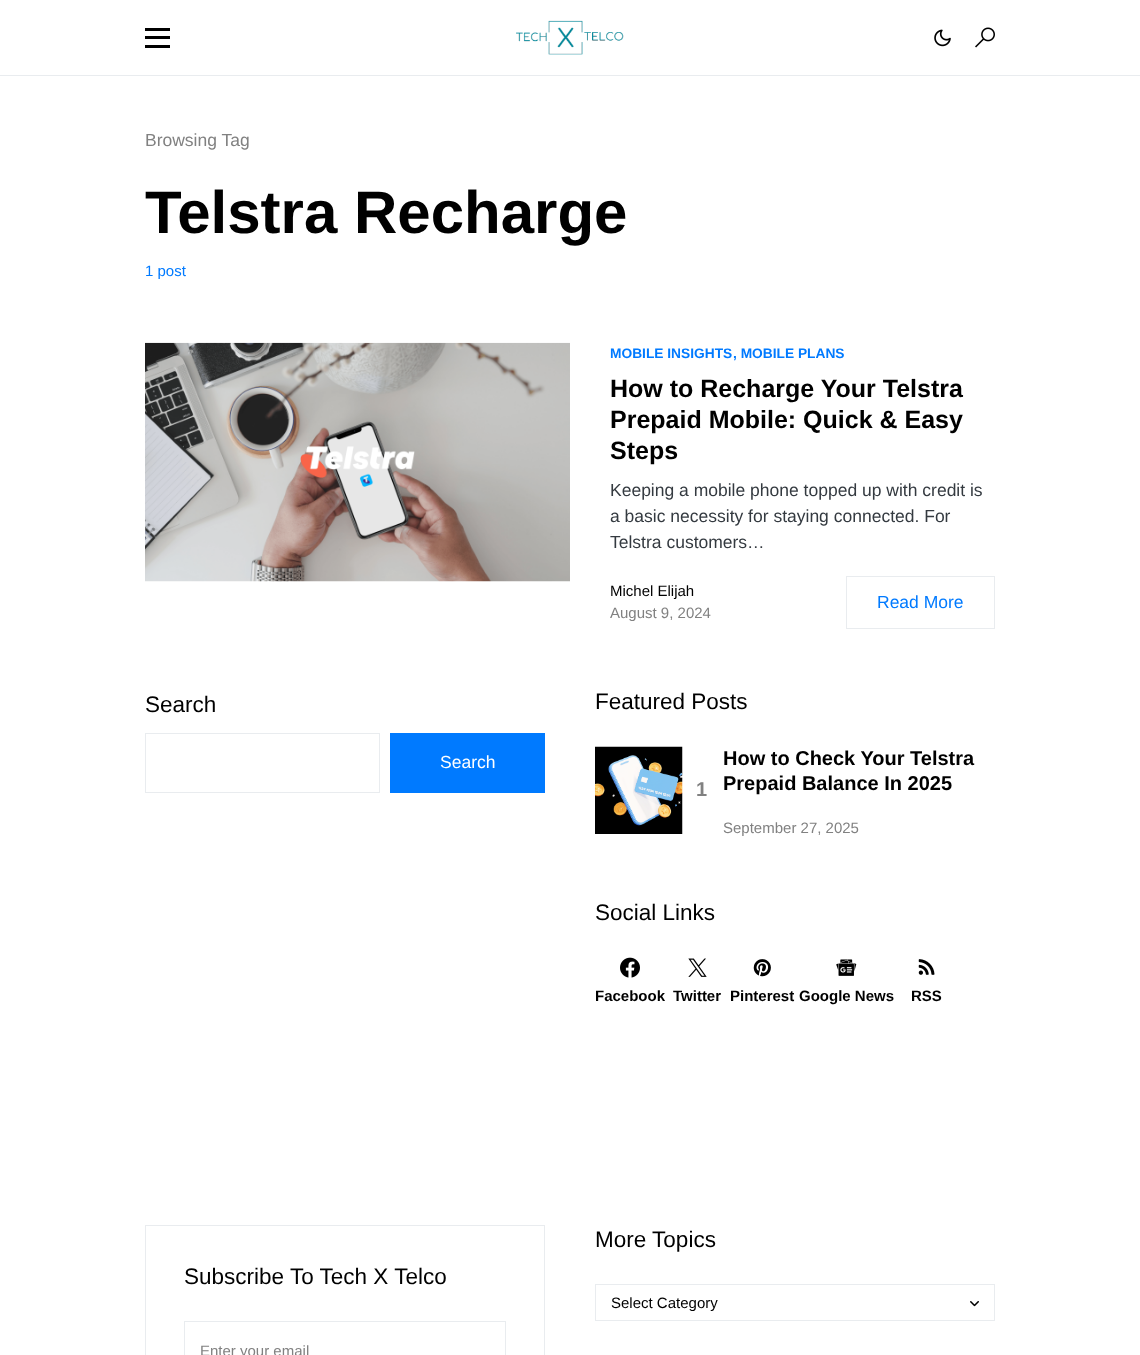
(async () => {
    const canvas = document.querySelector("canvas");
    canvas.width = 1140;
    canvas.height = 1355;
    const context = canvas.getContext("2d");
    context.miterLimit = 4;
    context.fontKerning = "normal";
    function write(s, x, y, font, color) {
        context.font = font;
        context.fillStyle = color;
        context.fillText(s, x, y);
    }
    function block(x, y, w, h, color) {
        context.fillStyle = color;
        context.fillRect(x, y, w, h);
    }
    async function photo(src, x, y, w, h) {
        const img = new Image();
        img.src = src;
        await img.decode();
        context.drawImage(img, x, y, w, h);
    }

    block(0, 0, 1140, 1355, "rgb(255, 255, 255)");
    block(0, 75, 1140, 1, "rgb(233, 236, 239)");
    block(145, 28, 25, 3, "rgb(0, 0, 0)");
    block(145, 36, 25, 3, "rgb(0, 0, 0)");
    block(145, 45, 25, 3, "rgb(0, 0, 0)");
    await photo("media/1.png", 516, 20, 108, 35);
    await photo("media/2.png", 934, 29, 17, 18);
    await photo("media/3.png", 975, 27, 20, 21);
    write("Browsing Tag", 145, 146, "17.5px Liberation Sans", "rgb(129, 129, 129)");
    write("Telstra Recharge", 145, 233, "bold 60px Liberation Sans", "rgb(0, 0, 0)");
    write("1 post", 145, 276, "15px Liberation Sans", "rgb(0, 122, 255)");
    await photo("media/4.png", 145, 342, 425, 240);
    write("MOBILE INSIGHTS", 610, 358, "bold 13.75px Liberation Sans", "rgb(0, 122, 255)");
    write(", MOBILE PLANS", 733, 358, "bold 13.75px Liberation Sans", "rgb(0, 122, 255)");
    write("How to Recharge Your Telstra", 610, 397, "bold 25px Liberation Sans", "rgb(0, 0, 0)");
    write("Prepaid Mobile: Quick & Easy", 610, 428, "bold 25px Liberation Sans", "rgb(0, 0, 0)");
    write("Steps", 610, 459, "bold 25px Liberation Sans", "rgb(0, 0, 0)");
    write("Keeping a mobile phone topped up with credit is", 610, 496, "17.5px Liberation Sans", "rgb(52, 58, 64)");
    write("a basic necessity for staying connected. For", 610, 522, "17.5px Liberation Sans", "rgb(52, 58, 64)");
    write("Telstra customers…", 610, 548, "17.5px Liberation Sans", "rgb(52, 58, 64)");
    write("Michel Elijah", 610, 596, "15px Liberation Sans", "rgb(0, 0, 0)");
    write("August 9, 2024", 610, 618, "15px Liberation Sans", "rgb(129, 129, 129)");
    context.strokeStyle = "rgb(233, 236, 239)";
    context.strokeRect(846.5, 576.5, 148, 52);
    write("Read More", 877, 608, "17.5px Liberation Sans", "rgb(0, 122, 255)");
    write("Search", 145, 712, "22.5px Liberation Sans", "rgb(0, 0, 0)");
    context.strokeRect(145.5, 733.5, 234, 59);
    block(390, 733, 155, 60, "rgb(0, 122, 255)");
    write("Search", 440, 768, "17.5px Liberation Sans", "rgb(255, 255, 255)");
    write("Featured Posts", 595, 709, "22.5px Liberation Sans", "rgb(0, 0, 0)");
    await photo("media/5.png", 595, 746, 88, 88);
    write("1", 696, 796, "bold 20px Liberation Sans", "rgb(129, 129, 129)");
    write("How to Check Your Telstra", 723, 765, "bold 20px Liberation Sans", "rgb(0, 0, 0)");
    write("Prepaid Balance In 2025", 723, 790, "bold 20px Liberation Sans", "rgb(0, 0, 0)");
    write("September 27, 2025", 723, 833, "15px Liberation Sans", "rgb(129, 129, 129)");
    write("Social Links", 595, 920, "22.5px Liberation Sans", "rgb(0, 0, 0)");
    await photo("media/6.png", 620, 957, 20, 21);
    write("Facebook", 595, 1001, "bold 15px Liberation Sans", "rgb(0, 0, 0)");
    await photo("media/7.png", 688, 958, 19, 19);
    write("Twitter", 673, 1001, "bold 15px Liberation Sans", "rgb(0, 0, 0)");
    await photo("media/8.png", 753, 959, 18, 18);
    write("Pinterest", 730, 1001, "bold 15px Liberation Sans", "rgb(0, 0, 0)");
    await photo("media/9.png", 836, 959, 21, 17);
    write("Google News", 799, 1001, "bold 15px Liberation Sans", "rgb(0, 0, 0)");
    await photo("media/10.png", 918, 959, 17, 16);
    write("RSS", 911, 1001, "bold 15px Liberation Sans", "rgb(0, 0, 0)");
    context.strokeRect(145.5, 1225.5, 399, 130);
    write("Subscribe To Tech X Telco", 184, 1284, "22.5px Liberation Sans", "rgb(0, 0, 0)");
    context.strokeRect(184.5, 1321.5, 321, 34);
    write("Enter your email", 200, 1356, "15px Liberation Sans", "rgb(129, 129, 129)");
    write("More Topics", 595, 1247, "22.5px Liberation Sans", "rgb(0, 0, 0)");
    await photo("media/11.png", 970, 1301, 9, 6);
    context.strokeRect(595.5, 1284.5, 399, 36);
    write("Select Category", 611, 1308, "15px Liberation Sans", "rgb(0, 0, 0)");
})();
